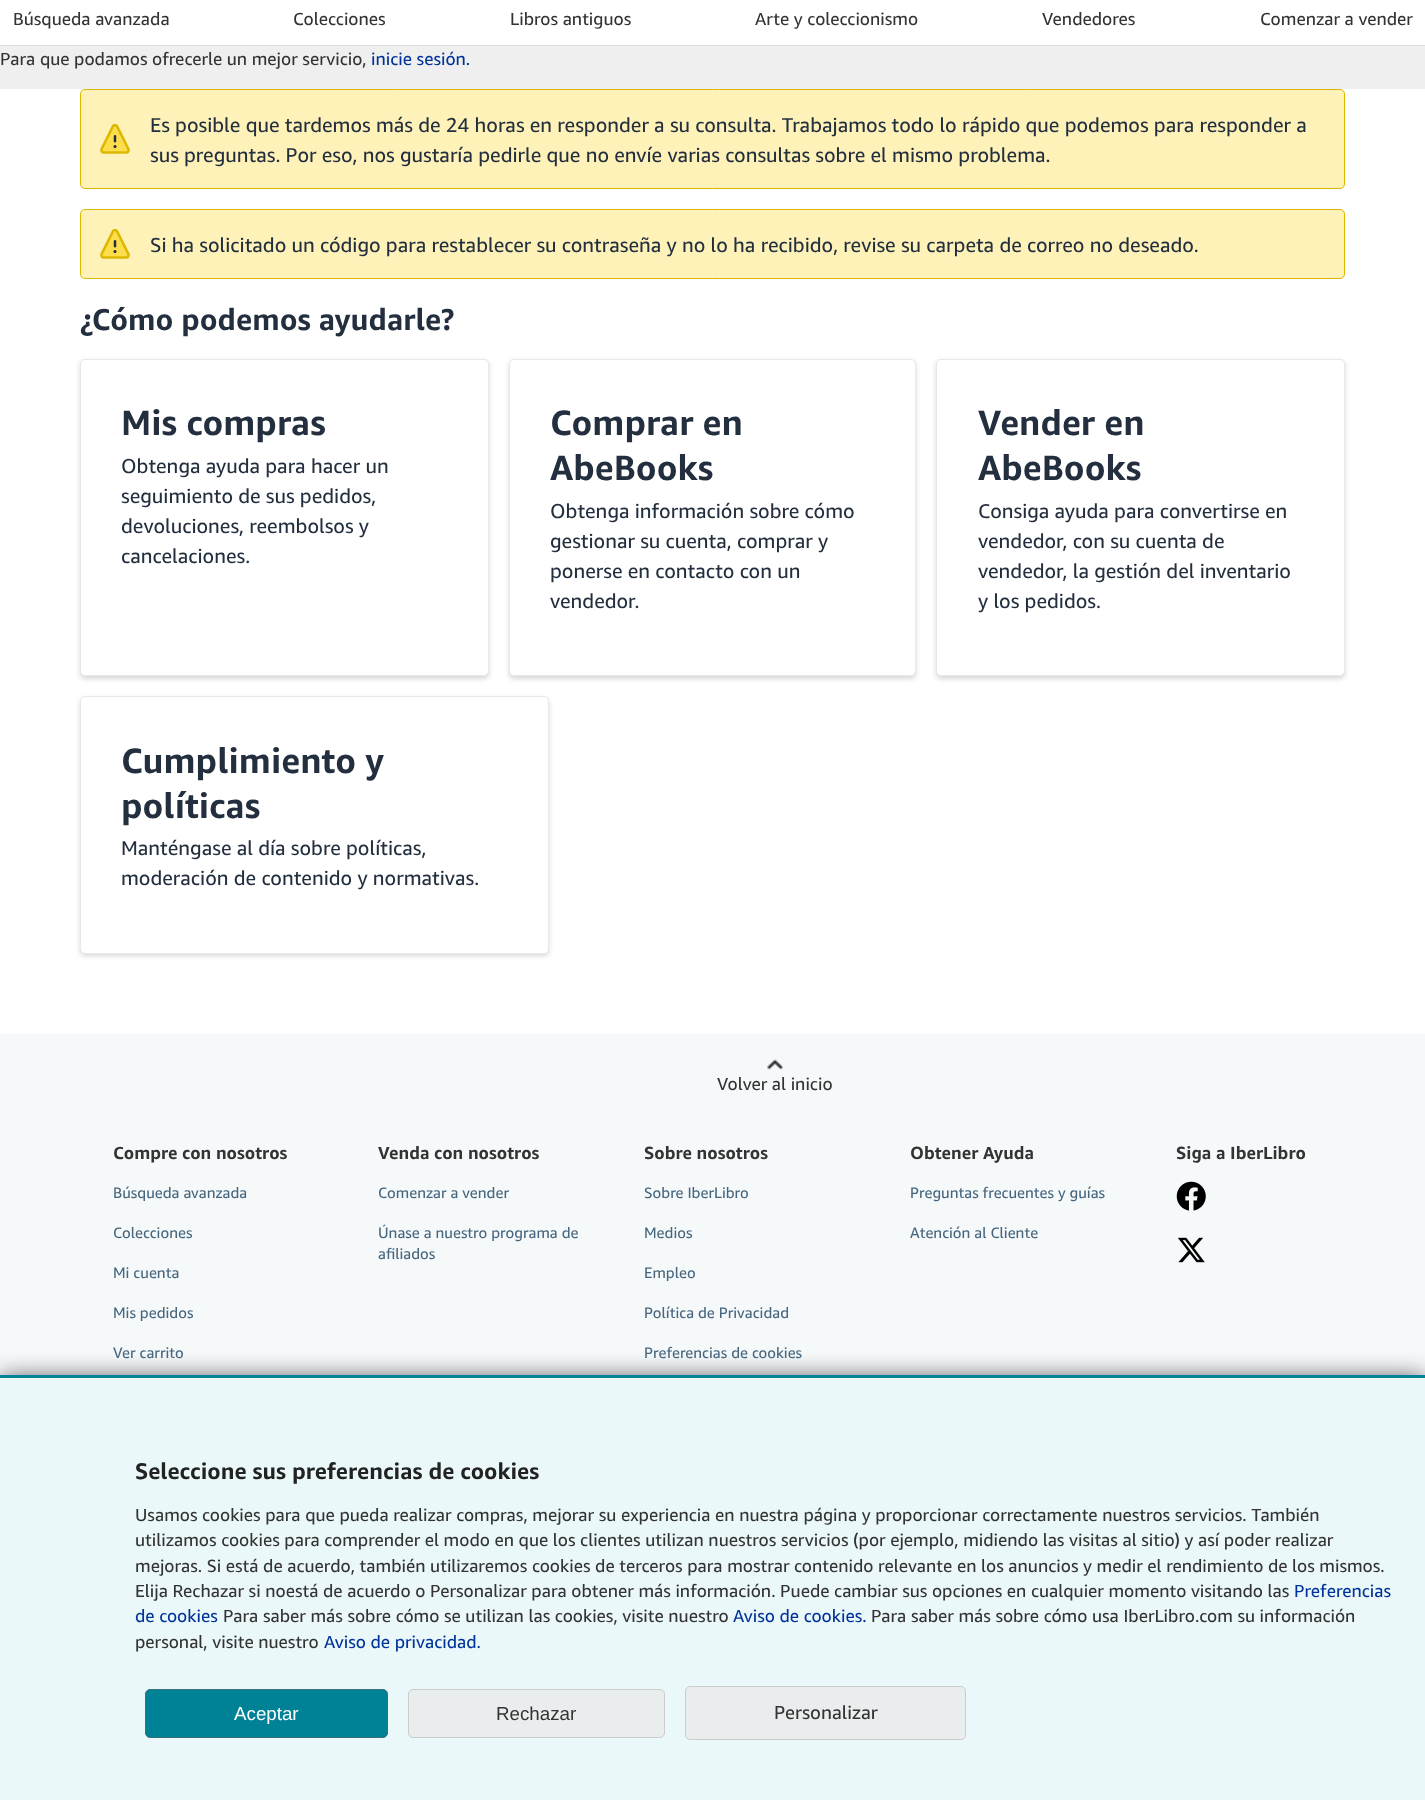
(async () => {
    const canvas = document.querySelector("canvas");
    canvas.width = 1425;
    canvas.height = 1800;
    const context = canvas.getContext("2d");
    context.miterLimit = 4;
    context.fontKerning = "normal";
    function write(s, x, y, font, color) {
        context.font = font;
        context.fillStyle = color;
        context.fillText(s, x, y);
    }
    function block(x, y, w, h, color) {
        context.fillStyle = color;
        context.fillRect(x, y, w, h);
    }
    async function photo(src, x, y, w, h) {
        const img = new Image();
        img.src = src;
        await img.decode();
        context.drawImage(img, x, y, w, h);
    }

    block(0, 0, 1425, 1800, "rgb(239, 239, 239)");
    block(0, 0, 1425, 45, "rgb(255, 255, 255)");
    block(0, 45, 1425, 1, "rgb(221, 221, 221)");
    write("Búsqueda avanzada", 13, 25, "17.5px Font", "rgb(51, 51, 51)");
    write("Colecciones", 293, 25, "17.5px Font", "rgb(51, 51, 51)");
    write("Libros antiguos", 510, 25, "17.5px Font", "rgb(51, 51, 51)");
    write("Arte y coleccionismo", 755, 25, "17.5px Font", "rgb(51, 51, 51)");
    write("Vendedores", 1042, 25, "17.5px Font", "rgb(51, 51, 51)");
    write("Comenzar a vender", 1260, 25, "17.5px Font", "rgb(51, 51, 51)");
    write("Para que podamos ofrecerle un mejor servicio,", 0, 65, "17.5px Font", "rgb(51, 51, 51)");
    write("inicie sesión.", 371, 65, "17.5px Font", "rgb(0, 51, 153)");
    block(0, 1034, 1425, 341, "rgb(245, 249, 250)");
    context.fillStyle = "rgba(0, 0, 0, 0.7)";
    context.filter = "blur(12.5px)";
    context.beginPath();
    context.rect(0, 1378, 1425, 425);
    context.fill();
    context.filter = "none";
    block(0, 1378, 1425, 422, "rgb(235, 248, 250)");
    block(0, 1375, 1425, 3, "rgb(0, 130, 150)");
    write("Seleccione sus preferencias de cookies", 135, 1479, "bold 22.5px Font", "rgb(34, 34, 34)");
    write("Usamos cookies para que pueda realizar compras, mejorar su experiencia en nuestra página y proporcionar correctamente nuestros servicios. También", 135, 1521, "17.5px Font", "rgb(51, 51, 51)");
    write("utilizamos cookies para comprender el modo en que los clientes utilizan nuestros servicios (por ejemplo, midiendo las visitas al sitio) y así poder realizar", 135, 1546, "17.5px Font", "rgb(51, 51, 51)");
    write("mejoras. Si está de acuerdo, también utilizaremos cookies de terceros para mostrar contenido relevante en los anuncios y medir el rendimiento de los mismos.", 135, 1572, "17.5px Font", "rgb(51, 51, 51)");
    write("Elija Rechazar si noestá de acuerdo o Personalizar para obtener más información. Puede cambiar sus opciones en cualquier momento visitando las", 135, 1597, "17.5px Font", "rgb(51, 51, 51)");
    write("Preferencias", 1294, 1597, "17.5px Font", "rgb(0, 51, 153)");
    write("de cookies", 135, 1622, "17.5px Font", "rgb(0, 51, 153)");
    write("Para saber más sobre cómo se utilizan las cookies, visite nuestro", 223, 1622, "17.5px Font", "rgb(51, 51, 51)");
    write("Aviso de cookies.", 733, 1622, "17.5px Font", "rgb(0, 51, 153)");
    write("Para saber más sobre cómo usa IberLibro.com su información", 871, 1622, "17.5px Font", "rgb(51, 51, 51)");
    write("personal, visite nuestro", 135, 1648, "17.5px Font", "rgb(51, 51, 51)");
    write("Aviso de privacidad.", 324, 1648, "17.5px Font", "rgb(0, 51, 153)");
    context.fillStyle = "rgb(0, 130, 150)";
    context.beginPath();
    context.roundRect(145.5, 1689.5, 242, 48, 4.5);
    context.fill();
    context.strokeStyle = "rgb(61, 113, 120)";
    context.stroke();
    write("Aceptar", 234, 1720, "18.75px Liberation Sans", "rgb(255, 255, 255)");
    context.fillStyle = "rgb(234, 237, 237)";
    context.beginPath();
    context.roundRect(408.5, 1689.5, 256, 48, 4.5);
    context.fill();
    context.strokeStyle = "rgb(204, 204, 204)";
    context.stroke();
    write("Rechazar", 496, 1720, "18.75px Liberation Sans", "rgb(51, 51, 51)");
    context.fillStyle = "rgb(234, 237, 237)";
    context.beginPath();
    context.roundRect(685.5, 1686.5, 280, 53, 4.5);
    context.fill();
    context.stroke();
    write("Personalizar", 774, 1719, "18.75px Font", "rgb(51, 51, 51)");
    block(0, 89, 1425, 945, "rgb(255, 255, 255)");
    context.fillStyle = "rgb(254, 242, 184)";
    context.beginPath();
    context.roundRect(80.5, 89.5, 1264, 99, 4.5);
    context.fill();
    context.strokeStyle = "rgb(220, 183, 0)";
    context.stroke();
    await photo("media/1.png", 100, 124, 30, 30);
    write("Es posible que tardemos más de 24 horas en responder a su consulta. Trabajamos todo lo rápido que podemos para responder a", 150, 132, "20px Font", "rgb(35, 47, 62)");
    write("sus preguntas. Por eso, nos gustaría pedirle que no envíe varias consultas sobre el mismo problema.", 150, 162, "20px Font", "rgb(35, 47, 62)");
    context.fillStyle = "rgb(254, 242, 184)";
    context.beginPath();
    context.roundRect(80.5, 209.5, 1264, 69, 4.5);
    context.fill();
    context.stroke();
    await photo("media/1.png", 100, 229, 30, 30);
    write("Si ha solicitado un código para restablecer su contraseña y no lo ha recibido, revise su carpeta de correo no deseado.", 150, 252, "20px Font", "rgb(35, 47, 62)");
    write("¿Cómo podemos ayudarle?", 80, 330, "bold 30px Font", "rgb(35, 47, 62)");
    context.fillStyle = "rgba(11, 12, 12, 0.16)";
    context.filter = "blur(2.5px)";
    context.beginPath();
    context.roundRect(80, 361, 409, 318, 5);
    context.fill();
    context.filter = "none";
    context.fillStyle = "rgb(255, 255, 255)";
    context.beginPath();
    context.roundRect(80.5, 359.5, 408, 316, 4.5);
    context.fill();
    context.strokeStyle = "rgb(231, 233, 233)";
    context.stroke();
    write("Mis compras", 121, 435, "bold 35px Font", "rgb(35, 47, 62)");
    write("Obtenga ayuda para hacer un", 121, 473, "20px Font", "rgb(35, 47, 62)");
    write("seguimiento de sus pedidos,", 121, 503, "20px Font", "rgb(35, 47, 62)");
    write("devoluciones, reembolsos y", 121, 533, "20px Font", "rgb(35, 47, 62)");
    write("cancelaciones.", 121, 563, "20px Font", "rgb(35, 47, 62)");
    context.fillStyle = "rgba(11, 12, 12, 0.16)";
    context.filter = "blur(2.5px)";
    context.beginPath();
    context.roundRect(509, 361, 407, 318, 5);
    context.fill();
    context.filter = "none";
    context.fillStyle = "rgb(255, 255, 255)";
    context.beginPath();
    context.roundRect(509.5, 359.5, 406, 316, 4.5);
    context.fill();
    context.stroke();
    write("Comprar en", 550, 435, "bold 35px Font", "rgb(35, 47, 62)");
    write("AbeBooks", 550, 480, "bold 35px Font", "rgb(35, 47, 62)");
    write("Obtenga información sobre cómo", 550, 518, "20px Font", "rgb(35, 47, 62)");
    write("gestionar su cuenta, comprar y", 550, 548, "20px Font", "rgb(35, 47, 62)");
    write("ponerse en contacto con un", 550, 578, "20px Font", "rgb(35, 47, 62)");
    write("vendedor.", 550, 608, "20px Font", "rgb(35, 47, 62)");
    context.fillStyle = "rgba(11, 12, 12, 0.16)";
    context.filter = "blur(2.5px)";
    context.beginPath();
    context.roundRect(936, 361, 409, 318, 5);
    context.fill();
    context.filter = "none";
    context.fillStyle = "rgb(255, 255, 255)";
    context.beginPath();
    context.roundRect(936.5, 359.5, 408, 316, 4.5);
    context.fill();
    context.stroke();
    write("Vender en", 978, 435, "bold 35px Font", "rgb(35, 47, 62)");
    write("AbeBooks", 978, 480, "bold 35px Font", "rgb(35, 47, 62)");
    write("Consiga ayuda para convertirse en", 978, 518, "20px Font", "rgb(35, 47, 62)");
    write("vendedor, con su cuenta de", 978, 548, "20px Font", "rgb(35, 47, 62)");
    write("vendedor, la gestión del inventario", 978, 578, "20px Font", "rgb(35, 47, 62)");
    write("y los pedidos.", 978, 608, "20px Font", "rgb(35, 47, 62)");
    context.fillStyle = "rgba(11, 12, 12, 0.16)";
    context.filter = "blur(2.5px)";
    context.beginPath();
    context.roundRect(80, 699, 469, 257, 5);
    context.fill();
    context.filter = "none";
    context.fillStyle = "rgb(255, 255, 255)";
    context.beginPath();
    context.roundRect(80.5, 696.5, 468, 257, 4.5);
    context.fill();
    context.stroke();
    write("Cumplimiento y", 121, 773, "bold 35px Font", "rgb(35, 47, 62)");
    write("políticas", 121, 818, "bold 35px Font", "rgb(35, 47, 62)");
    write("Manténgase al día sobre políticas,", 121, 855, "20px Font", "rgb(35, 47, 62)");
    write("moderación de contenido y normativas.", 121, 885, "20px Font", "rgb(35, 47, 62)");
    await photo("media/2.png", 767, 1059, 16, 11);
    write("Volver al inicio", 717, 1090, "17.5px Font", "rgb(51, 51, 51)");
    write("Compre con nosotros", 113, 1159, "bold 17.5px Font", "rgb(51, 51, 51)");
    write("Búsqueda avanzada", 113, 1198, "15px Font", "rgb(71, 102, 126)");
    write("Colecciones", 113, 1238, "15px Font", "rgb(71, 102, 126)");
    write("Mi cuenta", 113, 1278, "15px Font", "rgb(71, 102, 126)");
    write("Mis pedidos", 113, 1318, "15px Font", "rgb(71, 102, 126)");
    write("Ver carrito", 113, 1358, "15px Font", "rgb(71, 102, 126)");
    write("Venda con nosotros", 378, 1159, "bold 17.5px Font", "rgb(51, 51, 51)");
    write("Comenzar a vender", 378, 1198, "15px Font", "rgb(71, 102, 126)");
    write("Únase a nuestro programa de", 378, 1238, "15px Font", "rgb(71, 102, 126)");
    write("afiliados", 378, 1259, "15px Font", "rgb(71, 102, 126)");
    write("Sobre nosotros", 644, 1159, "bold 17.5px Font", "rgb(51, 51, 51)");
    write("Sobre IberLibro", 644, 1198, "15px Font", "rgb(71, 102, 126)");
    write("Medios", 644, 1238, "15px Font", "rgb(71, 102, 126)");
    write("Empleo", 644, 1278, "15px Font", "rgb(71, 102, 126)");
    write("Política de Privacidad", 644, 1318, "15px Font", "rgb(71, 102, 126)");
    write("Preferencias de cookies", 644, 1358, "15px Font", "rgb(71, 102, 126)");
    write("Obtener Ayuda", 910, 1159, "bold 17.5px Font", "rgb(51, 51, 51)");
    write("Preguntas frecuentes y guías", 910, 1198, "15px Font", "rgb(71, 102, 126)");
    write("Atención al Cliente", 910, 1238, "15px Font", "rgb(71, 102, 126)");
    write("Siga a IberLibro", 1176, 1159, "bold 17.5px Font", "rgb(51, 51, 51)");
    await photo("media/3.png", 1176, 1181, 30, 30);
    await photo("media/4.png", 1177, 1237, 28, 26);
})();
